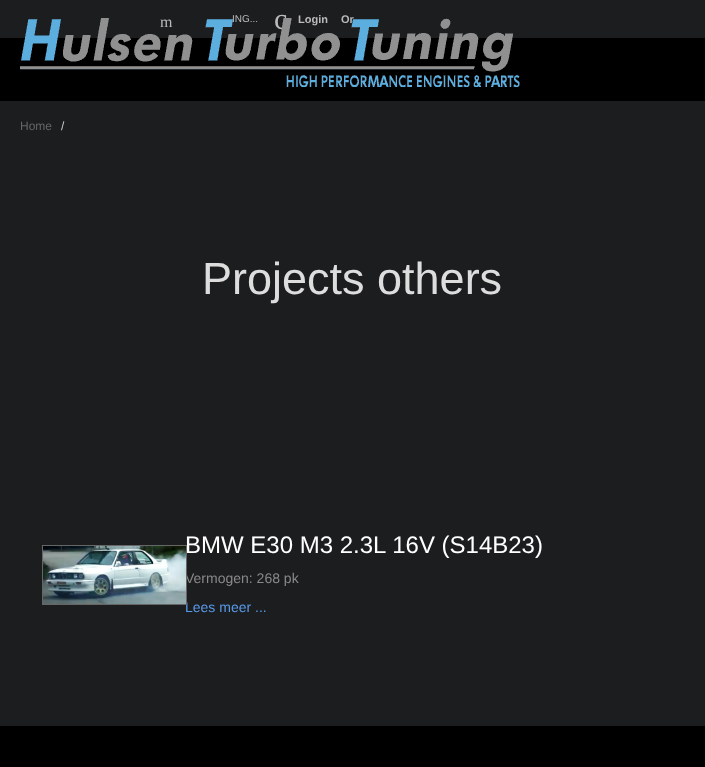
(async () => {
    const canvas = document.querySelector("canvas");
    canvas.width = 705;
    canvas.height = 767;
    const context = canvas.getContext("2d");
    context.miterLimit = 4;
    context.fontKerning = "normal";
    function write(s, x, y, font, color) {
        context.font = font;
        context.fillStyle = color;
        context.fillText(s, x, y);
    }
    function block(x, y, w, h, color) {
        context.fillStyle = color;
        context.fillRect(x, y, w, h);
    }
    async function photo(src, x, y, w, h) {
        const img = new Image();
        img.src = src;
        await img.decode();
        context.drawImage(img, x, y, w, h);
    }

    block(0, 0, 705, 767, "rgb(27, 29, 31)");
    write("m", 160, 27, "16px Liberation Serif", "rgb(187, 187, 187)");
    write("ING...", 232, 22, "10px Liberation Sans", "rgb(187, 187, 187)");
    write("c", 274, 29, "30px Liberation Serif", "rgb(187, 187, 187)");
    write("Login", 298, 23, "bold 11px Liberation Sans", "rgb(187, 187, 187)");
    write("Or", 341, 23, "bold 11px Liberation Sans", "rgb(187, 187, 187)");
    block(0, 38, 705, 63, "rgb(0, 0, 0)");
    await photo("media/1.png", 20, 18, 500, 69);
    write("Home", 20, 130, "12px Liberation Sans", "rgb(102, 102, 102)");
    write("/", 61, 130, "12px Liberation Sans", "rgb(204, 204, 204)");
    write("Projects others", 202, 294, "45px Liberation Sans", "rgb(221, 221, 221)");
    write("BMW E30 M3 2.3L 16V (S14B23)", 185, 553, "24px Liberation Sans", "rgb(255, 255, 255)");
    write("Vermogen: 268 pk", 185, 583, "14px Liberation Sans", "rgb(136, 136, 136)");
    write("Lees meer ...", 185, 612, "14px Liberation Sans", "rgb(89, 153, 232)");
    context.strokeStyle = "rgb(102, 102, 102)";
    context.strokeRect(42.5, 545.5, 144, 59);
    await photo("media/2.png", 43, 546, 143, 58);
    block(0, 726, 705, 41, "rgb(0, 0, 0)");
})();
